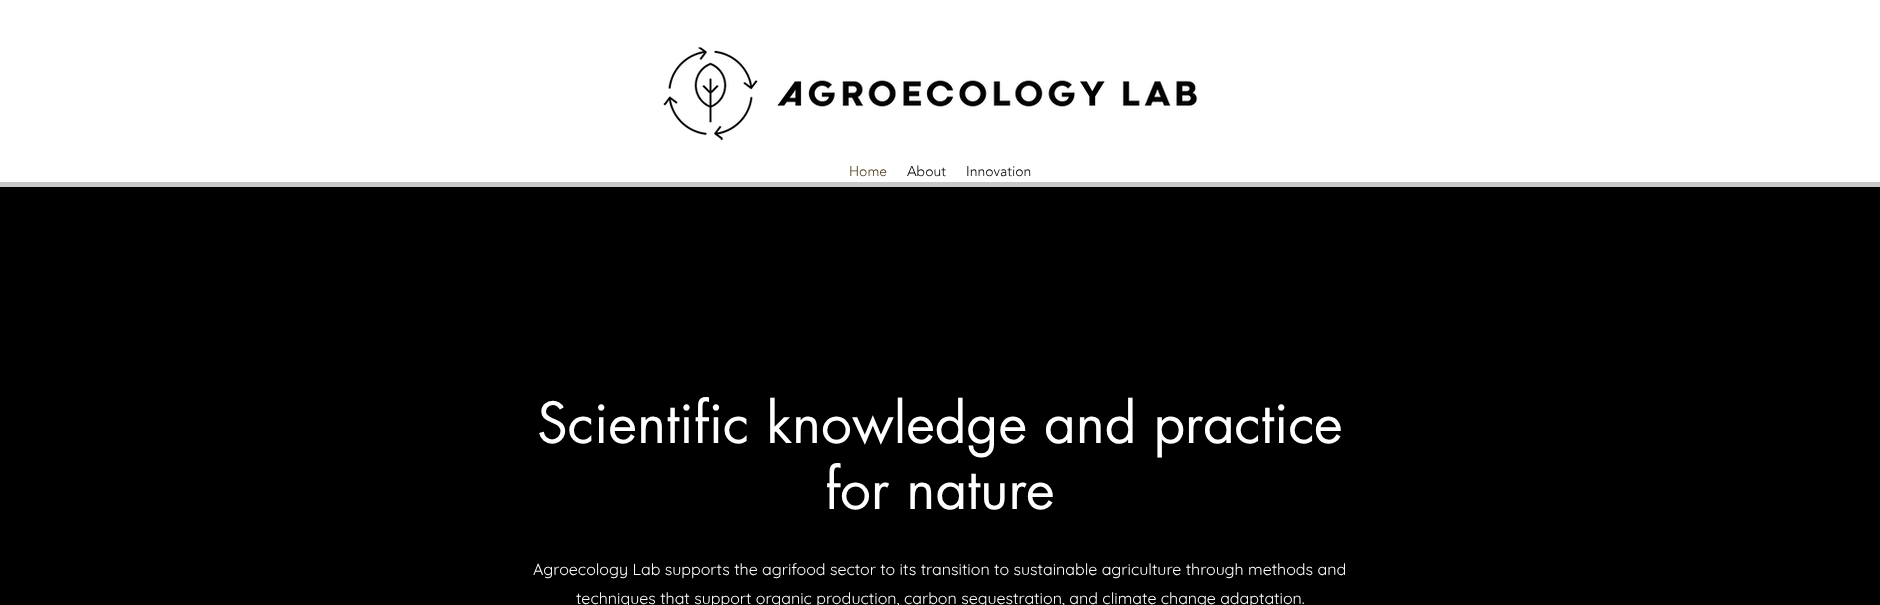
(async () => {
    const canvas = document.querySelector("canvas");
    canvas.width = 1880;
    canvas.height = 605;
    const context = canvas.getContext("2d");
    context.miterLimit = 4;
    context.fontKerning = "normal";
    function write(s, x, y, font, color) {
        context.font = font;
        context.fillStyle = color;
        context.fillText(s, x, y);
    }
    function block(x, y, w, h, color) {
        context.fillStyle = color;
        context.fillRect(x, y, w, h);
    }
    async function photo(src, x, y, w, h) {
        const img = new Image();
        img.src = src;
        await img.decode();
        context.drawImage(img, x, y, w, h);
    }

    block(0, 0, 1880, 605, "rgb(0, 0, 0)");
    block(0, 0, 1880, 182, "rgb(255, 255, 255)");
    block(0, 182, 1880, 5, "rgb(199, 199, 199)");
    await photo("media/1.png", 663, 46, 535, 95);
    write("Home", 849, 176, "300 14px 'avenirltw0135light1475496'", "rgb(84, 61, 27)");
    write("About", 907, 176, "300 14px 'avenirltw0135light1475496'", "rgb(0, 0, 0)");
    write("Innovation", 966, 176, "300 14px 'avenirltw0135light1475496'", "rgb(0, 0, 0)");
    write("Scientific knowledge and practice", 537, 443, "55px futura", "rgb(255, 255, 255)");
    write("for nature", 825, 509, "55px futura", "rgb(255, 255, 255)");
    write("Agroecology Lab supports the agrifood sector to its transition to sustainable agriculture through methods and", 533, 575, "16px Quicksand", "rgb(255, 255, 255)");
    write("techniques that support organic production, carbon sequestration, and climate change adaptation.", 576, 604, "16px Quicksand", "rgb(255, 255, 255)");
})();
